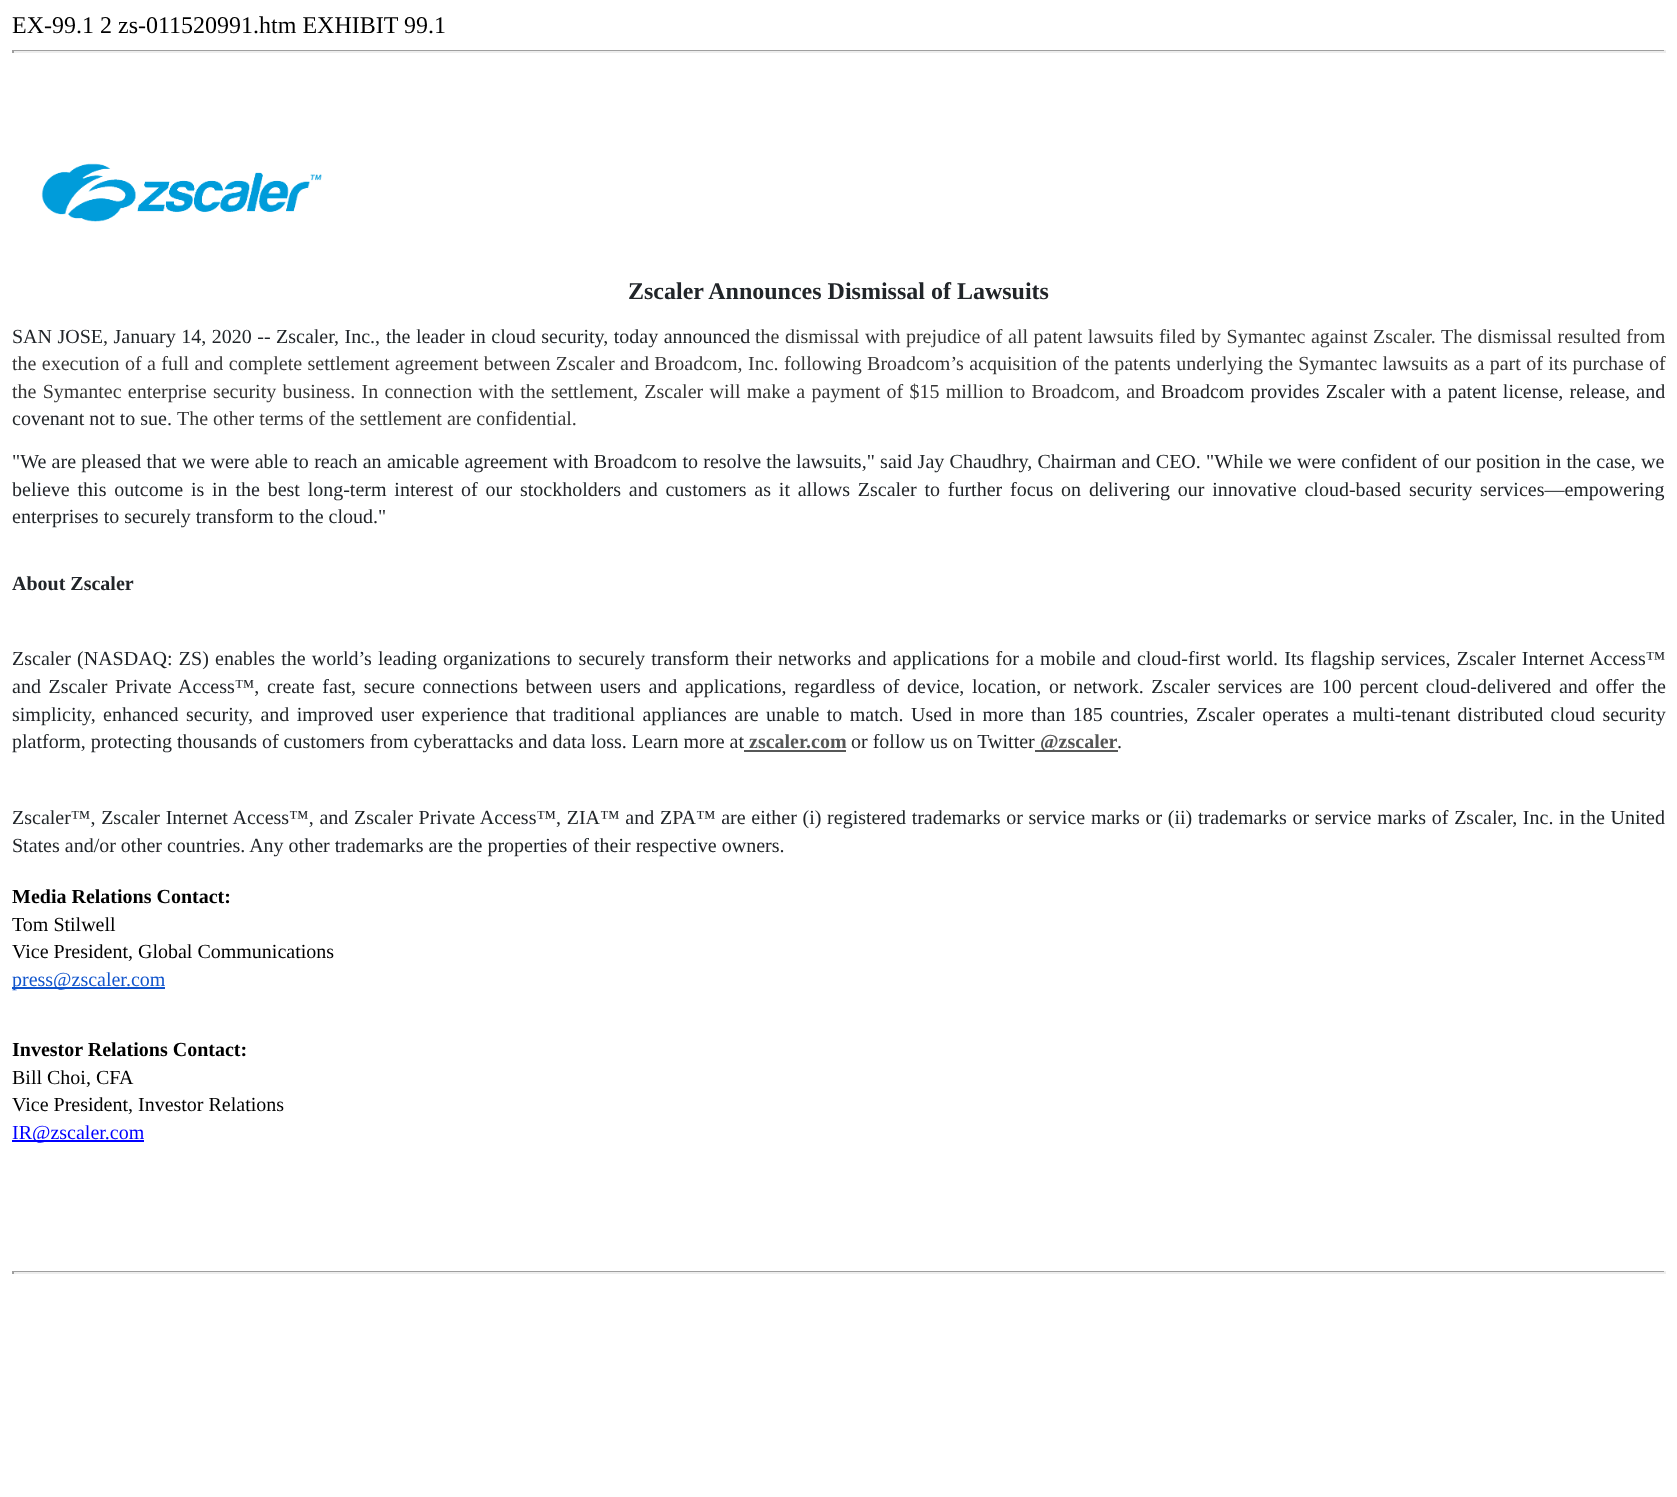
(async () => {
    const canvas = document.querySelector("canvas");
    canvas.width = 1677;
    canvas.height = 1497;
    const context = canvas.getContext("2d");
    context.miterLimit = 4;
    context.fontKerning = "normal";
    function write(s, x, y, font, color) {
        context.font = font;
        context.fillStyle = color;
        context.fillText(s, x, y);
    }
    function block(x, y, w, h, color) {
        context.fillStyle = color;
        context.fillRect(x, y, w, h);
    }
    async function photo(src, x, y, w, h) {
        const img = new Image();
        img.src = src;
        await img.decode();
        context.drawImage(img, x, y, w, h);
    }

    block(0, 0, 1677, 1497, "rgb(255, 255, 255)");
    write("EX-99.1 2 zs-011520991.htm EXHIBIT 99.1", 12, 33, "24px Liberation Serif", "rgb(0, 0, 0)");
    block(12, 50, 1653, 1, "rgb(159, 159, 159)");
    block(1664, 50, 2, 3, "rgb(238, 238, 238)");
    block(12, 51, 1653, 2, "rgb(238, 238, 238)");
    block(12, 50, 2, 3, "rgb(159, 159, 159)");
    await photo("media/1.png", 41, 163, 281, 59);
    write("Zscaler Announces Dismissal of Lawsuits", 628, 299, "bold 24px Liberation Serif", "rgb(33, 37, 41)");
    context.wordSpacing = "0.5px";
    write("SAN JOSE, January 14, 2020 --", 12, 343, "20px Liberation Serif", "rgb(33, 37, 41)");
    write("Zscaler, Inc.,", 276, 343, "20px Liberation Serif", "rgb(33, 37, 41)");
    write("the leader in cloud security, today announced", 386, 343, "20px Liberation Serif", "rgb(33, 37, 41)");
    write("the dismissal with prejudice of all patent lawsuits filed by Symantec against Zscaler. The dismissal resulted from", 755, 343, "20px Liberation Serif", "rgb(55, 55, 55)");
    context.wordSpacing = "0.4px";
    write("the execution of a full and complete settlement agreement between Zscaler and Broadcom, Inc. following Broadcom’s acquisition of the patents underlying the Symantec lawsuits as a part of its purchase of", 12, 370, "20px Liberation Serif", "rgb(55, 55, 55)");
    context.wordSpacing = "1.25px";
    write("the Symantec enterprise security business. In connection with the settlement, Zscaler will make a payment of $15 million to Broadcom, and", 12, 398, "20px Liberation Serif", "rgb(55, 55, 55)");
    write("Broadcom provides Zscaler with a patent license, release, and", 1161, 398, "20px Liberation Serif", "rgb(33, 37, 41)");
    context.wordSpacing = "0px";
    write("covenant not to sue.", 12, 425, "20px Liberation Serif", "rgb(33, 37, 41)");
    write("The other terms of the settlement are confidential.", 177, 425, "20px Liberation Serif", "rgb(55, 55, 55)");
    context.wordSpacing = "0.3px";
    write("\"We are pleased that we were able to reach an amicable agreement with Broadcom to resolve the lawsuits,\" said Jay Chaudhry, Chairman and CEO. \"While we were confident of our position in the case, we", 12, 468, "20px Liberation Serif", "rgb(33, 37, 41)");
    context.wordSpacing = "2.8px";
    write("believe this outcome is in the best long-term interest of our stockholders and customers as it allows Zscaler to further focus on delivering our innovative cloud-based security services—empowering", 12, 496, "20px Liberation Serif", "rgb(33, 37, 41)");
    context.wordSpacing = "0px";
    write("enterprises to securely transform to the cloud.\"", 12, 523, "20px Liberation Serif", "rgb(33, 37, 41)");
    write("About Zscaler", 12, 590, "bold 20px Liberation Serif", "rgb(33, 37, 41)");
    context.wordSpacing = "1.2px";
    write("Zscaler (NASDAQ: ZS) enables the world’s leading organizations to securely transform their networks and applications for a mobile and cloud-first world. Its flagship services, Zscaler Internet Access™", 12, 665, "20px Liberation Serif", "rgb(33, 37, 41)");
    context.wordSpacing = "2.6px";
    write("and Zscaler Private Access™, create fast, secure connections between users and applications, regardless of device, location, or network. Zscaler services are 100 percent cloud-delivered and offer the", 12, 693, "20px Liberation Serif", "rgb(33, 37, 41)");
    context.wordSpacing = "2.4px";
    write("simplicity, enhanced security, and improved user experience that traditional appliances are unable to match. Used in more than 185 countries, Zscaler operates a multi-tenant distributed cloud security", 12, 721, "20px Liberation Serif", "rgb(33, 37, 41)");
    context.wordSpacing = "0px";
    write("platform, protecting thousands of customers from cyberattacks and data loss. Learn more at", 12, 748, "20px Liberation Serif", "rgb(33, 37, 41)");
    write("zscaler.com", 749, 748, "bold 20px Liberation Serif", "rgb(86, 87, 87)");
    block(744, 750, 102, 2, "rgb(86, 87, 87)");
    write("or follow us on Twitter", 851, 748, "20px Liberation Serif", "rgb(33, 37, 41)");
    block(1035, 750, 83, 2, "rgb(86, 87, 87)");
    write("@zscaler", 1040, 748, "bold 20px Liberation Serif", "rgb(86, 87, 87)");
    write(".", 1117, 748, "20px Liberation Serif", "rgb(33, 37, 41)");
    context.wordSpacing = "0.7px";
    write("Zscaler™, Zscaler Internet Access™, and Zscaler Private Access™, ZIA™ and ZPA™ are either (i) registered trademarks or service marks or (ii) trademarks or service marks of Zscaler, Inc. in the United", 12, 824, "20px Liberation Serif", "rgb(33, 37, 41)");
    context.wordSpacing = "0px";
    write("States and/or other countries. Any other trademarks are the properties of their respective owners.", 12, 852, "20px Liberation Serif", "rgb(33, 37, 41)");
    write("Media Relations Contact:", 12, 903, "bold 20px Liberation Serif", "rgb(0, 0, 0)");
    write("Tom Stilwell", 12, 931, "20px Liberation Serif", "rgb(0, 0, 0)");
    write("Vice President, Global Communications", 12, 958, "20px Liberation Serif", "rgb(0, 0, 0)");
    block(12, 987, 153, 2, "rgb(17, 85, 204)");
    write("press@zscaler.com", 12, 986, "20px Liberation Serif", "rgb(17, 85, 204)");
    write("Investor Relations Contact:", 12, 1056, "bold 20px Liberation Serif", "rgb(0, 0, 0)");
    write("Bill Choi, CFA", 12, 1084, "20px Liberation Serif", "rgb(0, 0, 0)");
    write("Vice President, Investor Relations", 12, 1111, "20px Liberation Serif", "rgb(0, 0, 0)");
    block(12, 1140, 132, 2, "rgb(0, 0, 255)");
    write("IR@zscaler.com", 12, 1139, "20px Liberation Serif", "rgb(0, 0, 255)");
    block(12, 1271, 1653, 1, "rgb(159, 159, 159)");
    block(1664, 1271, 2, 3, "rgb(238, 238, 238)");
    block(12, 1272, 1653, 2, "rgb(238, 238, 238)");
    block(12, 1271, 2, 3, "rgb(159, 159, 159)");
})();
